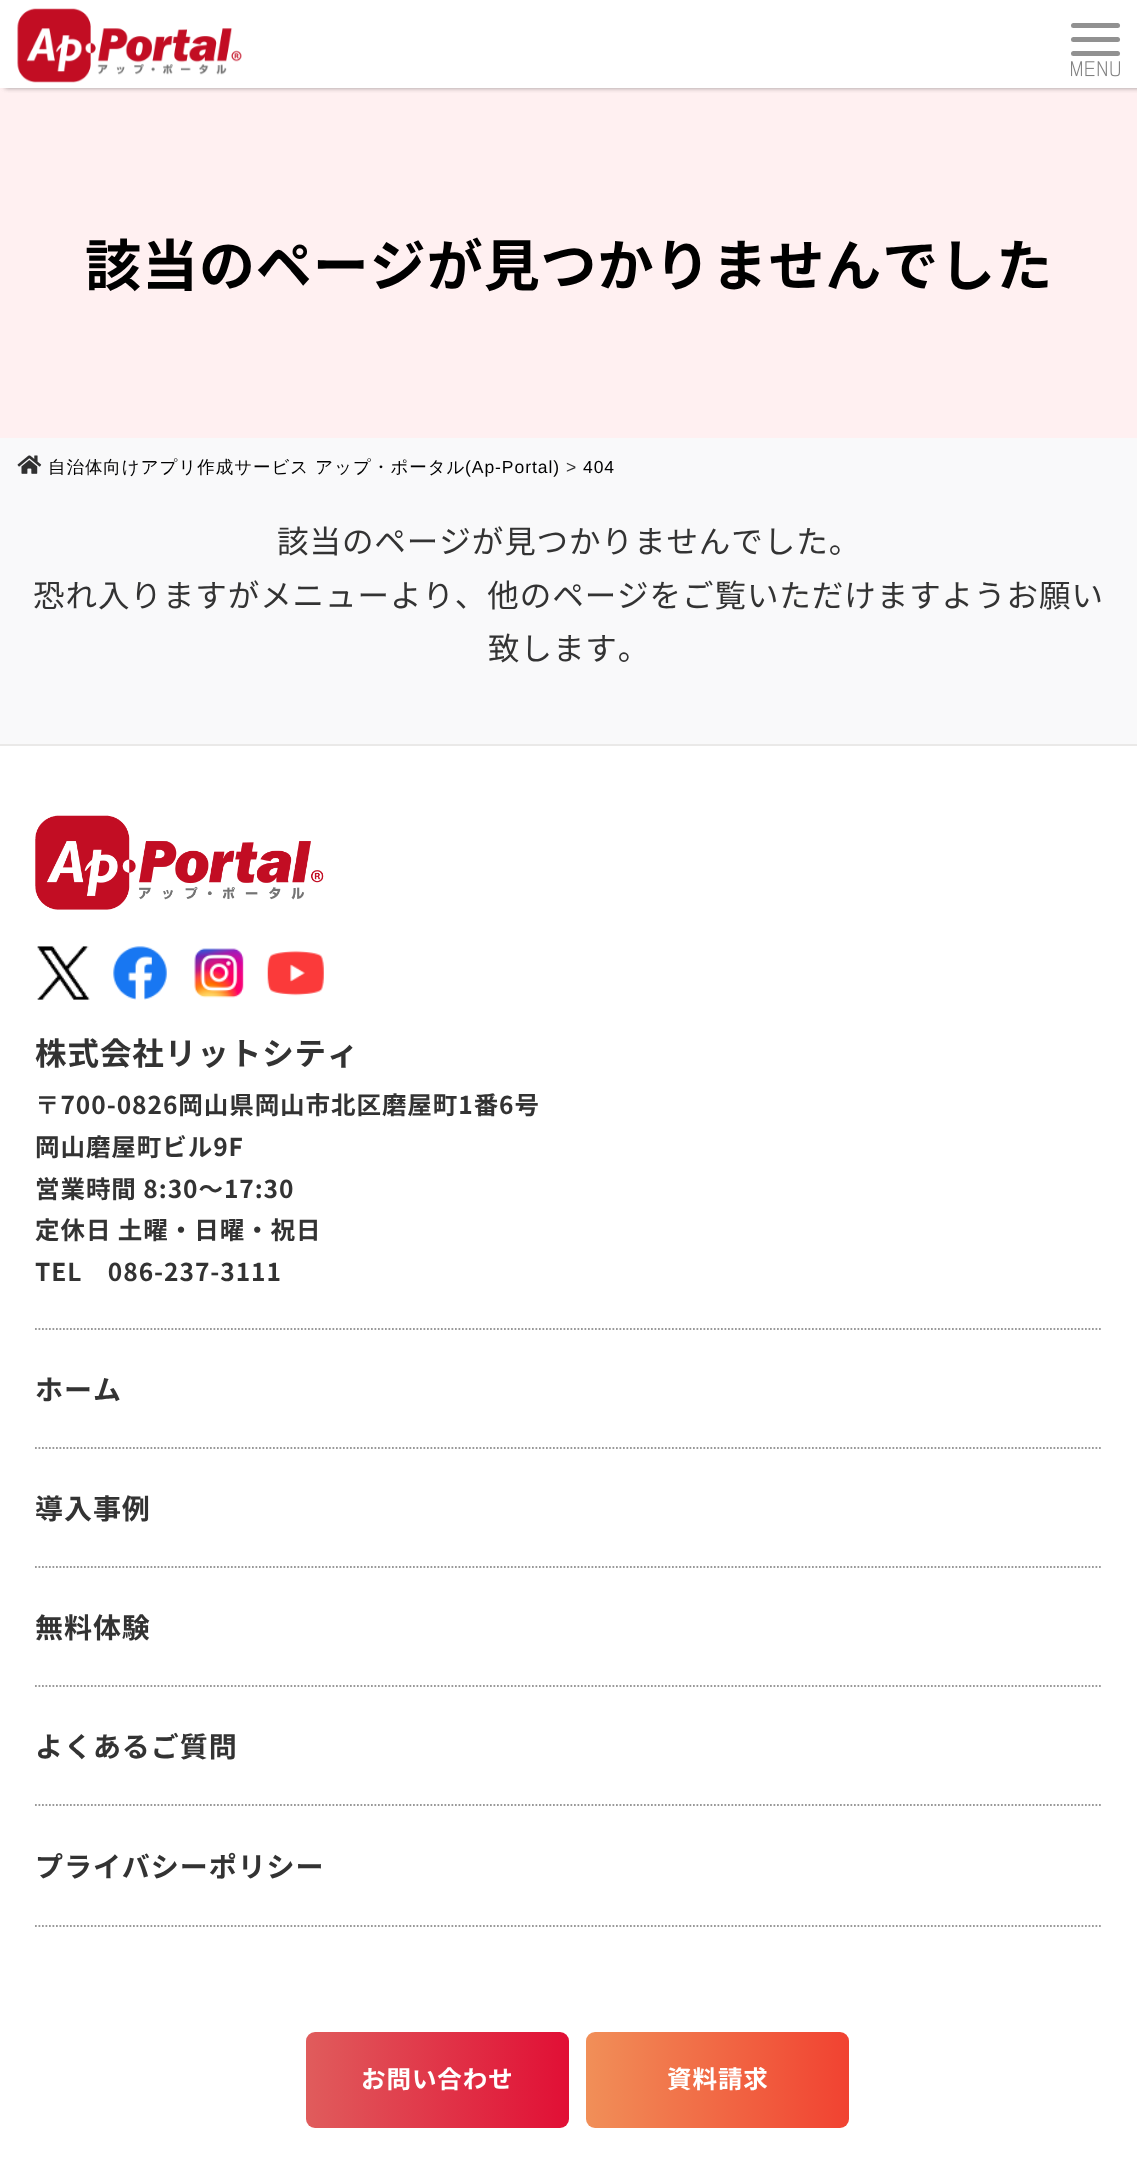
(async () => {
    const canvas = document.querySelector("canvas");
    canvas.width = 1137;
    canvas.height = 2166;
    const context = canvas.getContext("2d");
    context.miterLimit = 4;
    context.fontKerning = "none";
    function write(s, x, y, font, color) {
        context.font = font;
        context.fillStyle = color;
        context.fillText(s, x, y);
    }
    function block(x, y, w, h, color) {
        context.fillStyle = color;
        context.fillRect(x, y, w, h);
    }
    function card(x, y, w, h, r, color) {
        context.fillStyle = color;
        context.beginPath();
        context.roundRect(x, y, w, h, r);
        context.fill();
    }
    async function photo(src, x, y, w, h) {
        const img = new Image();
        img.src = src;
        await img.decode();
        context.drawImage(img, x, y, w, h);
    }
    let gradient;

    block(0, 0, 1137, 2166, "rgb(255, 255, 255)");
    block(0, 88, 1137, 350, "rgb(255, 240, 241)");
    context.fillStyle = "rgba(0, 0, 0, 0.2)";
    context.filter = "blur(2.5px)";
    context.beginPath();
    context.rect(5, 0, 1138, 88);
    context.fill();
    context.filter = "none";
    context.filter = "blur(2.5px)";
    context.beginPath();
    context.rect(5, 0, 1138, 88);
    context.fill();
    context.filter = "none";
    block(0, 0, 1137, 88, "rgb(255, 255, 255)");
    await photo("media/1.png", 17, 8, 225, 75);
    card(1071, 37, 49, 5, 2.5, "rgb(145, 145, 145)");
    card(1071, 23, 49, 5, 2.5, "rgb(145, 145, 145)");
    card(1071, 51, 49, 5, 2.5, "rgb(145, 145, 145)");
    await photo("media/2.png", 1071, 61, 49, 16);
    block(0, 438, 1137, 306, "rgb(249, 249, 250)");
    context.letterSpacing = "0.95px";
    write("該当のページが見つかりませんでした", 85, 286, "bold 56px Noto Sans JP", "rgb(0, 0, 0)");
    await photo("media/3.png", 17, 455, 25, 19);
    write("自治体向けアプリ作成サービス アップ・ポータル", 48, 473, "500 17.5px WenQuanYi Zen Hei", "rgb(0, 0, 0)");
    write("(Ap-Portal)", 465, 473, "17.5px Liberation Sans", "rgb(0, 0, 0)");
    write(">", 566, 473, "17.5px Liberation Sans", "rgb(51, 51, 51)");
    write("404", 583, 473, "17.5px Liberation Sans", "rgb(0, 0, 0)");
    write("該当のページが見つかりませんでした。", 277, 553, "31.5px Noto Sans JP", "rgb(51, 51, 51)");
    write("恐れ入りますがメニューより、他のページをご覧いただけますようお願い", 33, 607, "31.5px Noto Sans JP", "rgb(51, 51, 51)");
    write("致します。", 488, 660, "31.5px Noto Sans JP", "rgb(51, 51, 51)");
    block(0, 744, 1137, 2, "rgb(234, 233, 232)");
    await photo("media/4.png", 35, 815, 289, 95);
    await photo("media/5.png", 37, 946, 53, 54);
    await photo("media/6.png", 113, 946, 54, 54);
    await photo("media/7.png", 194, 948, 50, 50);
    await photo("media/8.png", 267, 950, 57, 46);
    write("株式会社リットシティ", 35, 1065, "bold 31.5px Noto Sans JP", "rgb(51, 51, 51)");
    write("〒700-0826岡山県岡山市北区磨屋町1番6号", 35, 1114, "bold 24.5px Noto Sans JP", "rgb(51, 51, 51)");
    write("岡山磨屋町ビル9F", 35, 1156, "bold 24.5px Noto Sans JP", "rgb(51, 51, 51)");
    write("営業時間 8:30〜17:30", 35, 1198, "bold 24.5px Noto Sans JP", "rgb(51, 51, 51)");
    write("定休日 土曜・日曜・祝日", 35, 1239, "bold 24.5px Noto Sans JP", "rgb(51, 51, 51)");
    write("TEL　086-237-3111", 35, 1281, "bold 24.5px Noto Sans JP", "rgb(51, 51, 51)");
    context.beginPath();
    context.moveTo(35, 1329);
    context.lineTo(1102.5, 1329);
    context.strokeStyle = "rgb(153, 153, 153)";
    context.lineWidth = 1.8;
    context.setLineDash([1.75, 1.75]);
    context.stroke();
    context.beginPath();
    context.moveTo(35, 1448);
    context.lineTo(1102.5, 1448);
    context.stroke();
    write("ホーム", 35, 1400, "bold 28px Noto Sans JP", "rgb(51, 51, 51)");
    context.beginPath();
    context.moveTo(35, 1567);
    context.lineTo(1102.5, 1567);
    context.stroke();
    write("導入事例", 35, 1519, "bold 28px Noto Sans JP", "rgb(51, 51, 51)");
    context.beginPath();
    context.moveTo(35, 1686);
    context.lineTo(1102.5, 1686);
    context.stroke();
    write("無料体験", 35, 1638, "bold 28px Noto Sans JP", "rgb(51, 51, 51)");
    context.beginPath();
    context.moveTo(35, 1805);
    context.lineTo(1102.5, 1805);
    context.stroke();
    write("よくあるご質問", 35, 1757, "bold 28px Noto Sans JP", "rgb(51, 51, 51)");
    context.beginPath();
    context.moveTo(35, 1926);
    context.lineTo(1102.5, 1926);
    context.stroke();
    write("プライバシーポリシー", 35, 1877, "bold 28px Noto Sans JP", "rgb(51, 51, 51)");
    gradient = context.createLinearGradient(306, 2080, 569, 2080);
    gradient.addColorStop(0, "rgb(224, 92, 92)");
    gradient.addColorStop(1, "rgb(225, 15, 53)");
    context.fillStyle = gradient;
    context.beginPath();
    context.roundRect(306, 2032, 263, 96, 9);
    context.fill();
    write("お問い合わせ", 361, 2088, "bold 24.5px Noto Sans JP", "rgb(255, 255, 255)");
    gradient = context.createLinearGradient(586, 2080, 849, 2080);
    gradient.addColorStop(0, "rgb(241, 143, 88)");
    gradient.addColorStop(1, "rgb(241, 66, 49)");
    context.fillStyle = gradient;
    context.beginPath();
    context.roundRect(586, 2032, 263, 96, 9);
    context.fill();
    write("資料請求", 667, 2088, "bold 24.5px Noto Sans JP", "rgb(255, 255, 255)");
})();
